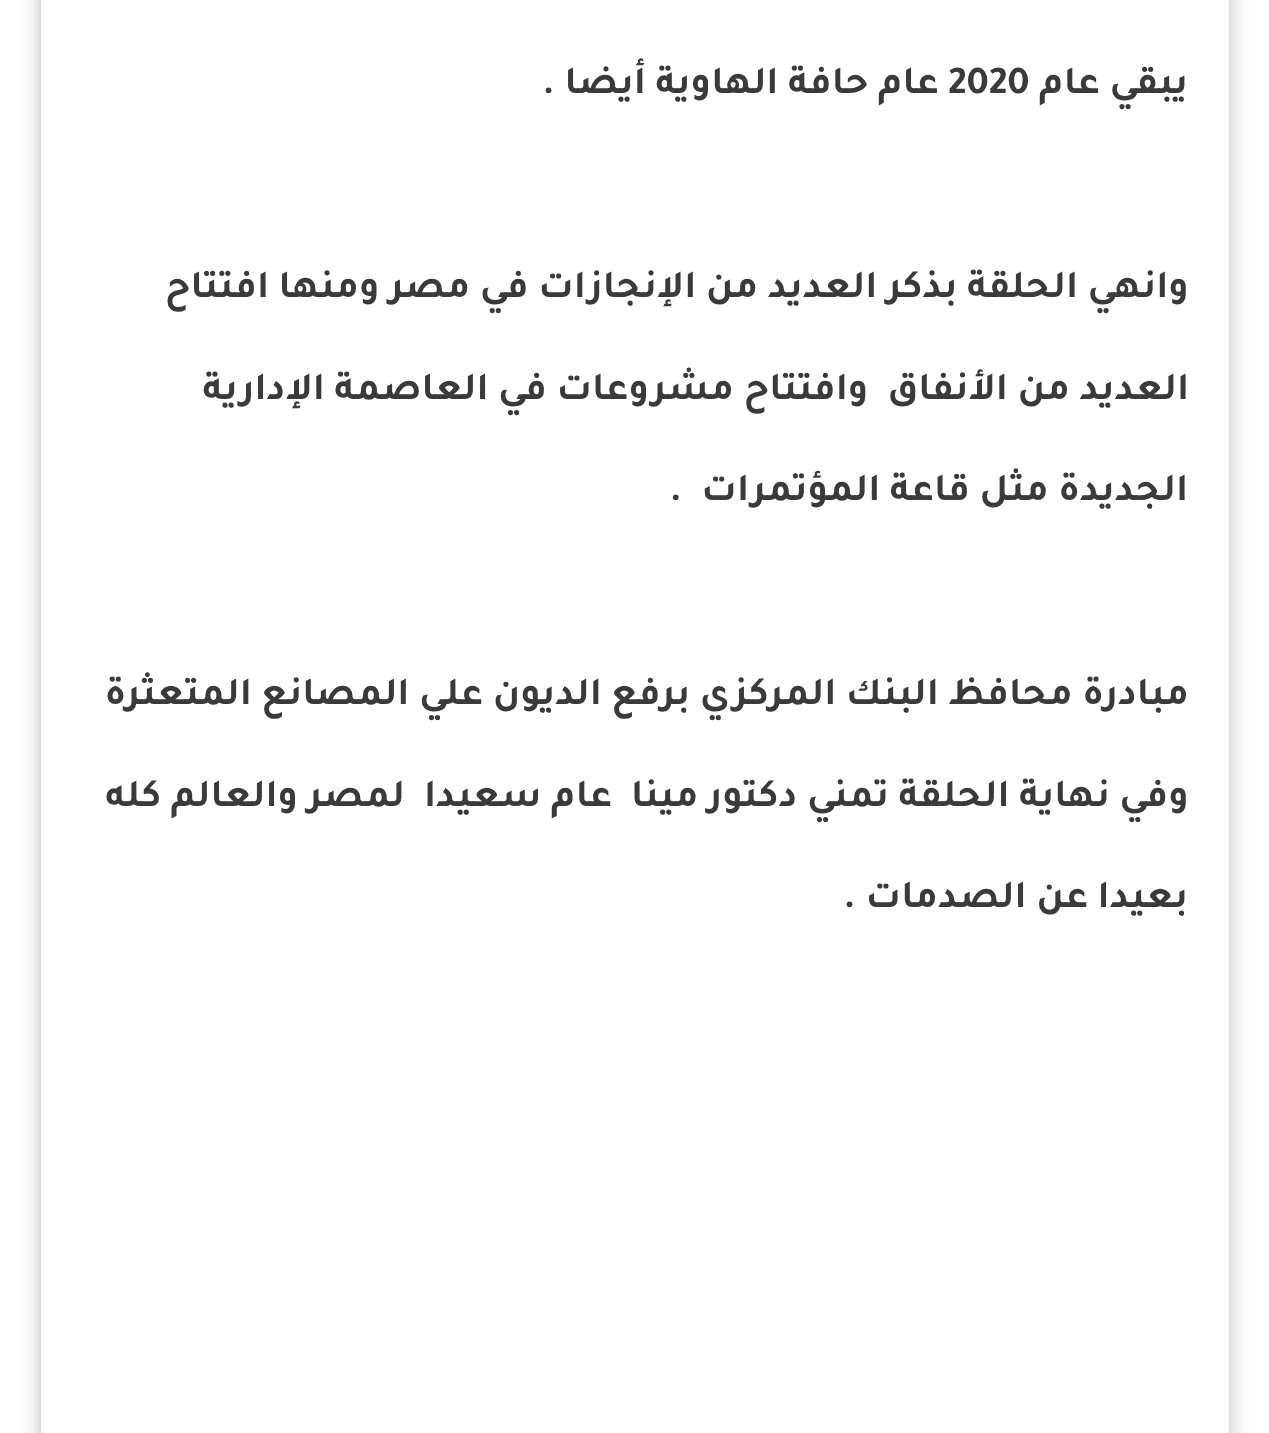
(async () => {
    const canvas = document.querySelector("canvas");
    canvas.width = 1269;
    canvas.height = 1433;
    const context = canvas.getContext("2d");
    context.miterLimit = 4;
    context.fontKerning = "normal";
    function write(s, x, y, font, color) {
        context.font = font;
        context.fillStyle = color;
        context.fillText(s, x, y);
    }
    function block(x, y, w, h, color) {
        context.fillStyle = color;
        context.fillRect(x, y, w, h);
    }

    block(0, 0, 1269, 1433, "rgb(255, 255, 255)");
    context.fillStyle = "rgba(0, 0, 0, 0.16)";
    context.filter = "blur(7px)";
    context.beginPath();
    context.rect(41, -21, 1188, 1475);
    context.fill();
    context.filter = "none";
    context.fillStyle = "rgba(0, 0, 0, 0.12)";
    context.filter = "blur(14px)";
    context.beginPath();
    context.rect(41, -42, 1188, 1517);
    context.fill();
    context.filter = "none";
    block(41, 0, 1188, 1433, "rgb(255, 255, 255)");
    context.direction = "rtl";
    write("يبقي عام", 1188, 93, "bold 39.6px Tajawal", "rgb(59, 58, 59)");
    context.direction = "ltr";
    write("2020", 948, 93, "bold 39.6px Tajawal", "rgb(59, 58, 59)");
    context.direction = "rtl";
    write("عام حافة الهاوية أيضا .", 939, 93, "bold 39.6px Tajawal", "rgb(59, 58, 59)");
    write("وانهي الحلقة بذكر العديد من الإنجازات في مصر ومنها افتتاح", 1189, 297, "bold 39.6px Tajawal", "rgb(59, 58, 59)");
    write("العديد من الأنفاق  وافتتاح مشروعات في العاصمة الإدارية", 1189, 399, "bold 39.6px Tajawal", "rgb(59, 58, 59)");
    write("الجديدة مثل قاعة المؤتمرات  .", 1188, 500, "bold 39.6px Tajawal", "rgb(59, 58, 59)");
    write("مبادرة محافظ البنك المركزي برفع الديون علي المصانع المتعثرة", 1189, 704, "bold 39.6px Tajawal", "rgb(59, 58, 59)");
    write("وفي نهاية الحلقة تمني دكتور مينا  عام سعيدا  لمصر والعالم كله", 1189, 806, "bold 39.6px Tajawal", "rgb(59, 58, 59)");
    write("بعيدا عن الصدمات .", 1188, 907, "bold 39.6px Tajawal", "rgb(59, 58, 59)");
})();
